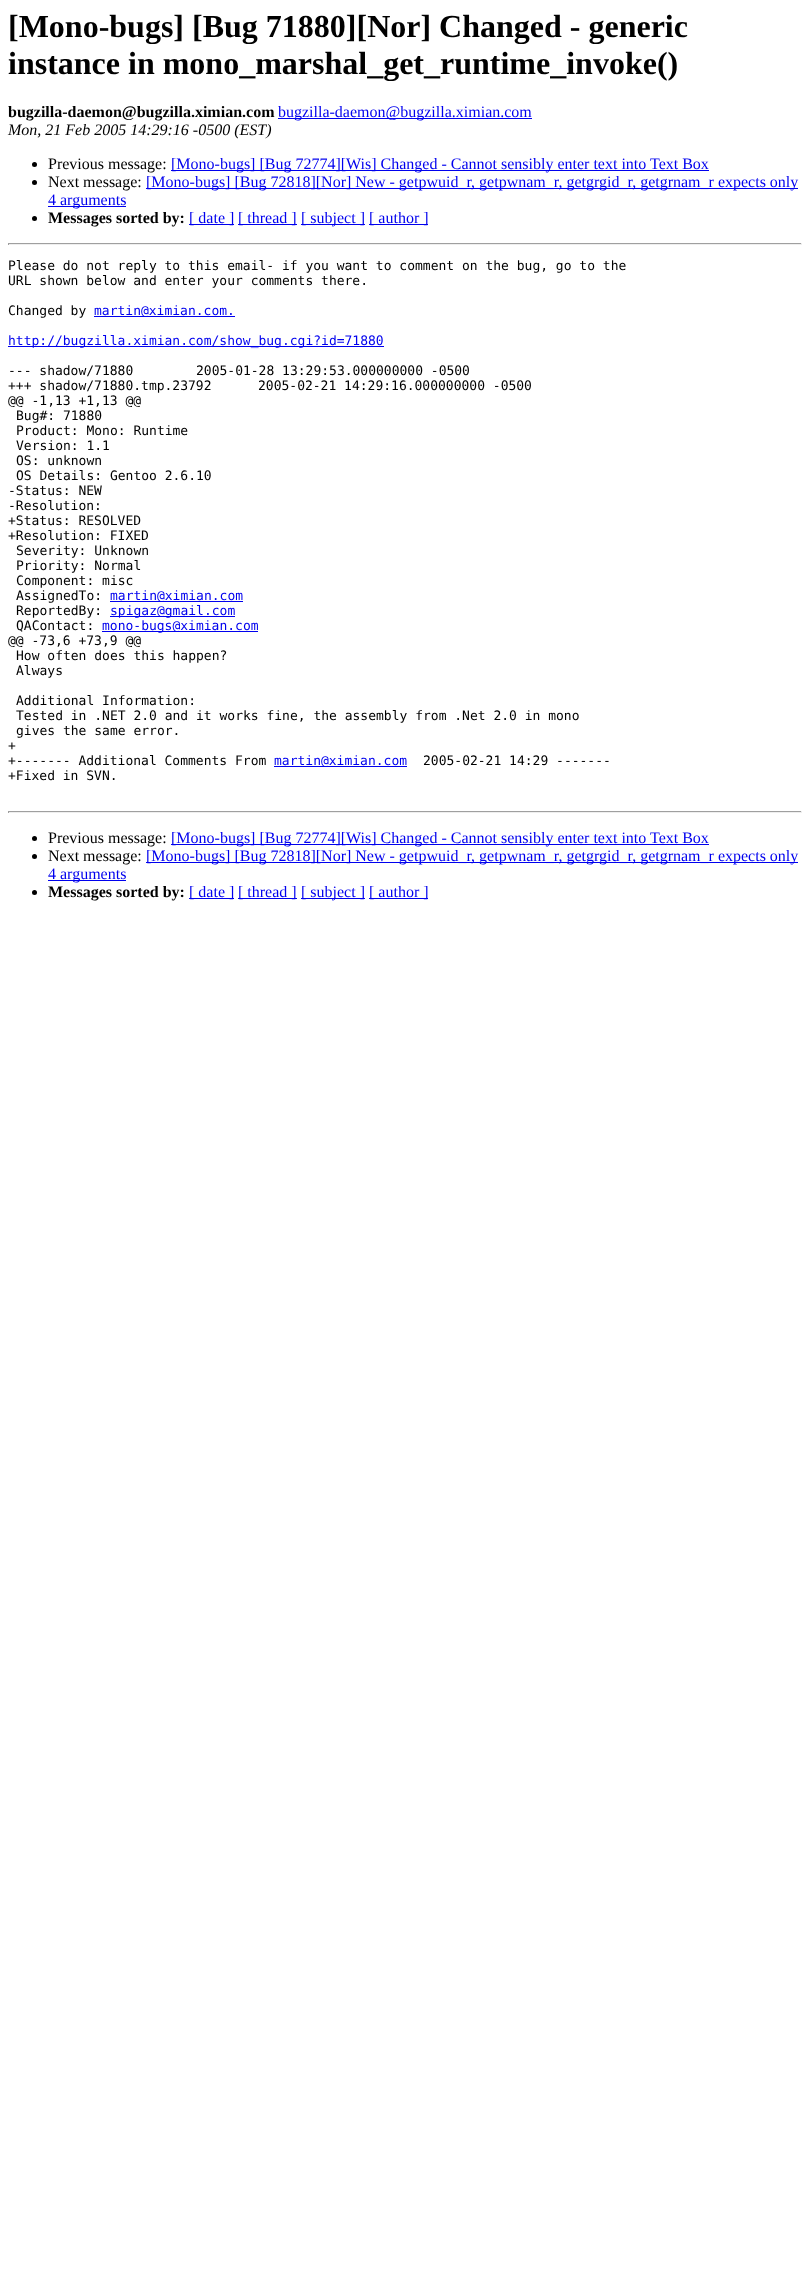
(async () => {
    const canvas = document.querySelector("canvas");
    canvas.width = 810;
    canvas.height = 2278;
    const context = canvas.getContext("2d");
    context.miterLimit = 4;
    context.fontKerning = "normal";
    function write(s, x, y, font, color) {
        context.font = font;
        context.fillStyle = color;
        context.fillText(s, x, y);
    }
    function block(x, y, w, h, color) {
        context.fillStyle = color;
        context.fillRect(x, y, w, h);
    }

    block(0, 0, 810, 2278, "rgb(255, 255, 255)");
    write("[Mono-bugs] [Bug 71880][Nor] Changed - generic", 8, 37, "bold 32px Liberation Serif", "rgb(0, 0, 0)");
    write("instance in mono_marshal_get_runtime_invoke()", 8, 74, "bold 32px Liberation Serif", "rgb(0, 0, 0)");
    write("bugzilla-daemon@bugzilla.ximian.com", 8, 117, "bold 16px Liberation Serif", "rgb(0, 0, 0)");
    block(278, 118, 254, 1, "rgb(0, 0, 238)");
    write("bugzilla-daemon@bugzilla.ximian.com", 278, 117, "16px Liberation Serif", "rgb(0, 0, 238)");
    write("Mon, 21 Feb 2005 14:29:16 -0500 (EST)", 8, 135, "italic 16px Liberation Serif", "rgb(0, 0, 0)");
    context.beginPath();
    context.arc(34.5, 164.5, 2.5, 0, Math.PI * 2);
    context.fill();
    write("Previous message:", 48, 169, "16px Liberation Serif", "rgb(0, 0, 0)");
    block(171, 170, 538, 1, "rgb(0, 0, 238)");
    write("[Mono-bugs] [Bug 72774][Wis] Changed - Cannot sensibly enter text into Text Box", 171, 169, "16px Liberation Serif", "rgb(0, 0, 238)");
    context.fillStyle = "rgb(0, 0, 0)";
    context.beginPath();
    context.arc(34.5, 182.5, 2.5, 0, Math.PI * 2);
    context.fill();
    write("Next message:", 48, 187, "16px Liberation Serif", "rgb(0, 0, 0)");
    block(146, 188, 652, 1, "rgb(0, 0, 238)");
    write("[Mono-bugs] [Bug 72818][Nor] New - getpwuid_r, getpwnam_r, getgrgid_r, getgrnam_r expects only", 146, 187, "16px Liberation Serif", "rgb(0, 0, 238)");
    block(48, 206, 78, 1, "rgb(0, 0, 238)");
    write("4 arguments", 48, 205, "16px Liberation Serif", "rgb(0, 0, 238)");
    context.fillStyle = "rgb(0, 0, 0)";
    context.beginPath();
    context.arc(34.5, 218.5, 2.5, 0, Math.PI * 2);
    context.fill();
    write("Messages sorted by:", 48, 223, "bold 16px Liberation Serif", "rgb(0, 0, 0)");
    block(189, 224, 45, 1, "rgb(0, 0, 238)");
    write("[ date ]", 189, 223, "16px Liberation Serif", "rgb(0, 0, 238)");
    block(238, 224, 59, 1, "rgb(0, 0, 238)");
    write("[ thread ]", 238, 223, "16px Liberation Serif", "rgb(0, 0, 238)");
    block(301, 224, 64, 1, "rgb(0, 0, 238)");
    write("[ subject ]", 301, 223, "16px Liberation Serif", "rgb(0, 0, 238)");
    block(369, 224, 59, 1, "rgb(0, 0, 238)");
    write("[ author ]", 369, 223, "16px Liberation Serif", "rgb(0, 0, 238)");
    block(8, 243, 794, 1, "rgb(159, 159, 159)");
    block(801, 243, 1, 2, "rgb(238, 238, 238)");
    block(8, 244, 794, 1, "rgb(238, 238, 238)");
    block(8, 243, 1, 2, "rgb(159, 159, 159)");
    write("Please do not reply to this email- if you want to comment on the bug, go to the", 8, 270, "13px DejaVu Sans Mono", "rgb(0, 0, 0)");
    write("URL shown below and enter your comments there.", 8, 285, "13px DejaVu Sans Mono", "rgb(0, 0, 0)");
    write("Changed by", 8, 315, "13px DejaVu Sans Mono", "rgb(0, 0, 0)");
    block(94, 316, 141, 1, "rgb(0, 0, 238)");
    write("martin@ximian.com.", 94, 315, "13px DejaVu Sans Mono", "rgb(0, 0, 238)");
    block(8, 346, 376, 1, "rgb(0, 0, 238)");
    write("http://bugzilla.ximian.com/show_bug.cgi?id=71880", 8, 345, "13px DejaVu Sans Mono", "rgb(0, 0, 238)");
    write("--- shadow/71880", 8, 375, "13px DejaVu Sans Mono", "rgb(0, 0, 0)");
    write("2005-01-28 13:29:53.000000000 -0500", 196, 375, "13px DejaVu Sans Mono", "rgb(0, 0, 0)");
    write("+++ shadow/71880.tmp.23792", 8, 390, "13px DejaVu Sans Mono", "rgb(0, 0, 0)");
    write("2005-02-21 14:29:16.000000000 -0500", 258, 390, "13px DejaVu Sans Mono", "rgb(0, 0, 0)");
    write("@@ -1,13 +1,13 @@", 8, 405, "13px DejaVu Sans Mono", "rgb(0, 0, 0)");
    write("Bug#: 71880", 16, 420, "13px DejaVu Sans Mono", "rgb(0, 0, 0)");
    write("Product: Mono: Runtime", 16, 435, "13px DejaVu Sans Mono", "rgb(0, 0, 0)");
    write("Version: 1.1", 16, 450, "13px DejaVu Sans Mono", "rgb(0, 0, 0)");
    write("OS: unknown", 16, 465, "13px DejaVu Sans Mono", "rgb(0, 0, 0)");
    write("OS Details: Gentoo 2.6.10", 16, 480, "13px DejaVu Sans Mono", "rgb(0, 0, 0)");
    write("-Status: NEW", 8, 495, "13px DejaVu Sans Mono", "rgb(0, 0, 0)");
    write("-Resolution:", 8, 510, "13px DejaVu Sans Mono", "rgb(0, 0, 0)");
    write("+Status: RESOLVED", 8, 525, "13px DejaVu Sans Mono", "rgb(0, 0, 0)");
    write("+Resolution: FIXED", 8, 540, "13px DejaVu Sans Mono", "rgb(0, 0, 0)");
    write("Severity: Unknown", 16, 555, "13px DejaVu Sans Mono", "rgb(0, 0, 0)");
    write("Priority: Normal", 16, 570, "13px DejaVu Sans Mono", "rgb(0, 0, 0)");
    write("Component: misc", 16, 585, "13px DejaVu Sans Mono", "rgb(0, 0, 0)");
    write("AssignedTo:", 16, 600, "13px DejaVu Sans Mono", "rgb(0, 0, 0)");
    block(110, 601, 133, 1, "rgb(0, 0, 238)");
    write("martin@ximian.com", 110, 600, "13px DejaVu Sans Mono", "rgb(0, 0, 238)");
    write("ReportedBy:", 16, 615, "13px DejaVu Sans Mono", "rgb(0, 0, 0)");
    block(110, 616, 125, 1, "rgb(0, 0, 238)");
    write("spigaz@gmail.com", 110, 615, "13px DejaVu Sans Mono", "rgb(0, 0, 238)");
    write("QAContact:", 16, 630, "13px DejaVu Sans Mono", "rgb(0, 0, 0)");
    block(102, 631, 156, 1, "rgb(0, 0, 238)");
    write("mono-bugs@ximian.com", 102, 630, "13px DejaVu Sans Mono", "rgb(0, 0, 238)");
    write("@@ -73,6 +73,9 @@", 8, 645, "13px DejaVu Sans Mono", "rgb(0, 0, 0)");
    write("How often does this happen?", 16, 660, "13px DejaVu Sans Mono", "rgb(0, 0, 0)");
    write("Always", 16, 675, "13px DejaVu Sans Mono", "rgb(0, 0, 0)");
    write("Additional Information:", 16, 705, "13px DejaVu Sans Mono", "rgb(0, 0, 0)");
    write("Tested in .NET 2.0 and it works fine, the assembly from .Net 2.0 in mono", 16, 720, "13px DejaVu Sans Mono", "rgb(0, 0, 0)");
    write("gives the same error.", 16, 735, "13px DejaVu Sans Mono", "rgb(0, 0, 0)");
    write("+", 8, 750, "13px DejaVu Sans Mono", "rgb(0, 0, 0)");
    write("+------- Additional Comments From", 8, 765, "13px DejaVu Sans Mono", "rgb(0, 0, 0)");
    block(274, 766, 133, 1, "rgb(0, 0, 238)");
    write("martin@ximian.com", 274, 765, "13px DejaVu Sans Mono", "rgb(0, 0, 238)");
    write("2005-02-21 14:29 -------", 423, 765, "13px DejaVu Sans Mono", "rgb(0, 0, 0)");
    write("+Fixed in SVN.", 8, 780, "13px DejaVu Sans Mono", "rgb(0, 0, 0)");
    block(8, 811, 794, 1, "rgb(159, 159, 159)");
    block(801, 811, 1, 2, "rgb(238, 238, 238)");
    block(8, 812, 794, 1, "rgb(238, 238, 238)");
    block(8, 811, 1, 2, "rgb(159, 159, 159)");
    context.fillStyle = "rgb(0, 0, 0)";
    context.beginPath();
    context.arc(34.5, 838.5, 2.5, 0, Math.PI * 2);
    context.fill();
    write("Previous message:", 48, 843, "16px Liberation Serif", "rgb(0, 0, 0)");
    block(171, 844, 538, 1, "rgb(0, 0, 238)");
    write("[Mono-bugs] [Bug 72774][Wis] Changed - Cannot sensibly enter text into Text Box", 171, 843, "16px Liberation Serif", "rgb(0, 0, 238)");
    context.fillStyle = "rgb(0, 0, 0)";
    context.beginPath();
    context.arc(34.5, 856.5, 2.5, 0, Math.PI * 2);
    context.fill();
    write("Next message:", 48, 861, "16px Liberation Serif", "rgb(0, 0, 0)");
    block(146, 862, 652, 1, "rgb(0, 0, 238)");
    write("[Mono-bugs] [Bug 72818][Nor] New - getpwuid_r, getpwnam_r, getgrgid_r, getgrnam_r expects only", 146, 861, "16px Liberation Serif", "rgb(0, 0, 238)");
    block(48, 880, 78, 1, "rgb(0, 0, 238)");
    write("4 arguments", 48, 879, "16px Liberation Serif", "rgb(0, 0, 238)");
    context.fillStyle = "rgb(0, 0, 0)";
    context.beginPath();
    context.arc(34.5, 892.5, 2.5, 0, Math.PI * 2);
    context.fill();
    write("Messages sorted by:", 48, 897, "bold 16px Liberation Serif", "rgb(0, 0, 0)");
    block(189, 898, 45, 1, "rgb(0, 0, 238)");
    write("[ date ]", 189, 897, "16px Liberation Serif", "rgb(0, 0, 238)");
    block(238, 898, 59, 1, "rgb(0, 0, 238)");
    write("[ thread ]", 238, 897, "16px Liberation Serif", "rgb(0, 0, 238)");
    block(301, 898, 64, 1, "rgb(0, 0, 238)");
    write("[ subject ]", 301, 897, "16px Liberation Serif", "rgb(0, 0, 238)");
    block(369, 898, 59, 1, "rgb(0, 0, 238)");
    write("[ author ]", 369, 897, "16px Liberation Serif", "rgb(0, 0, 238)");
})();
